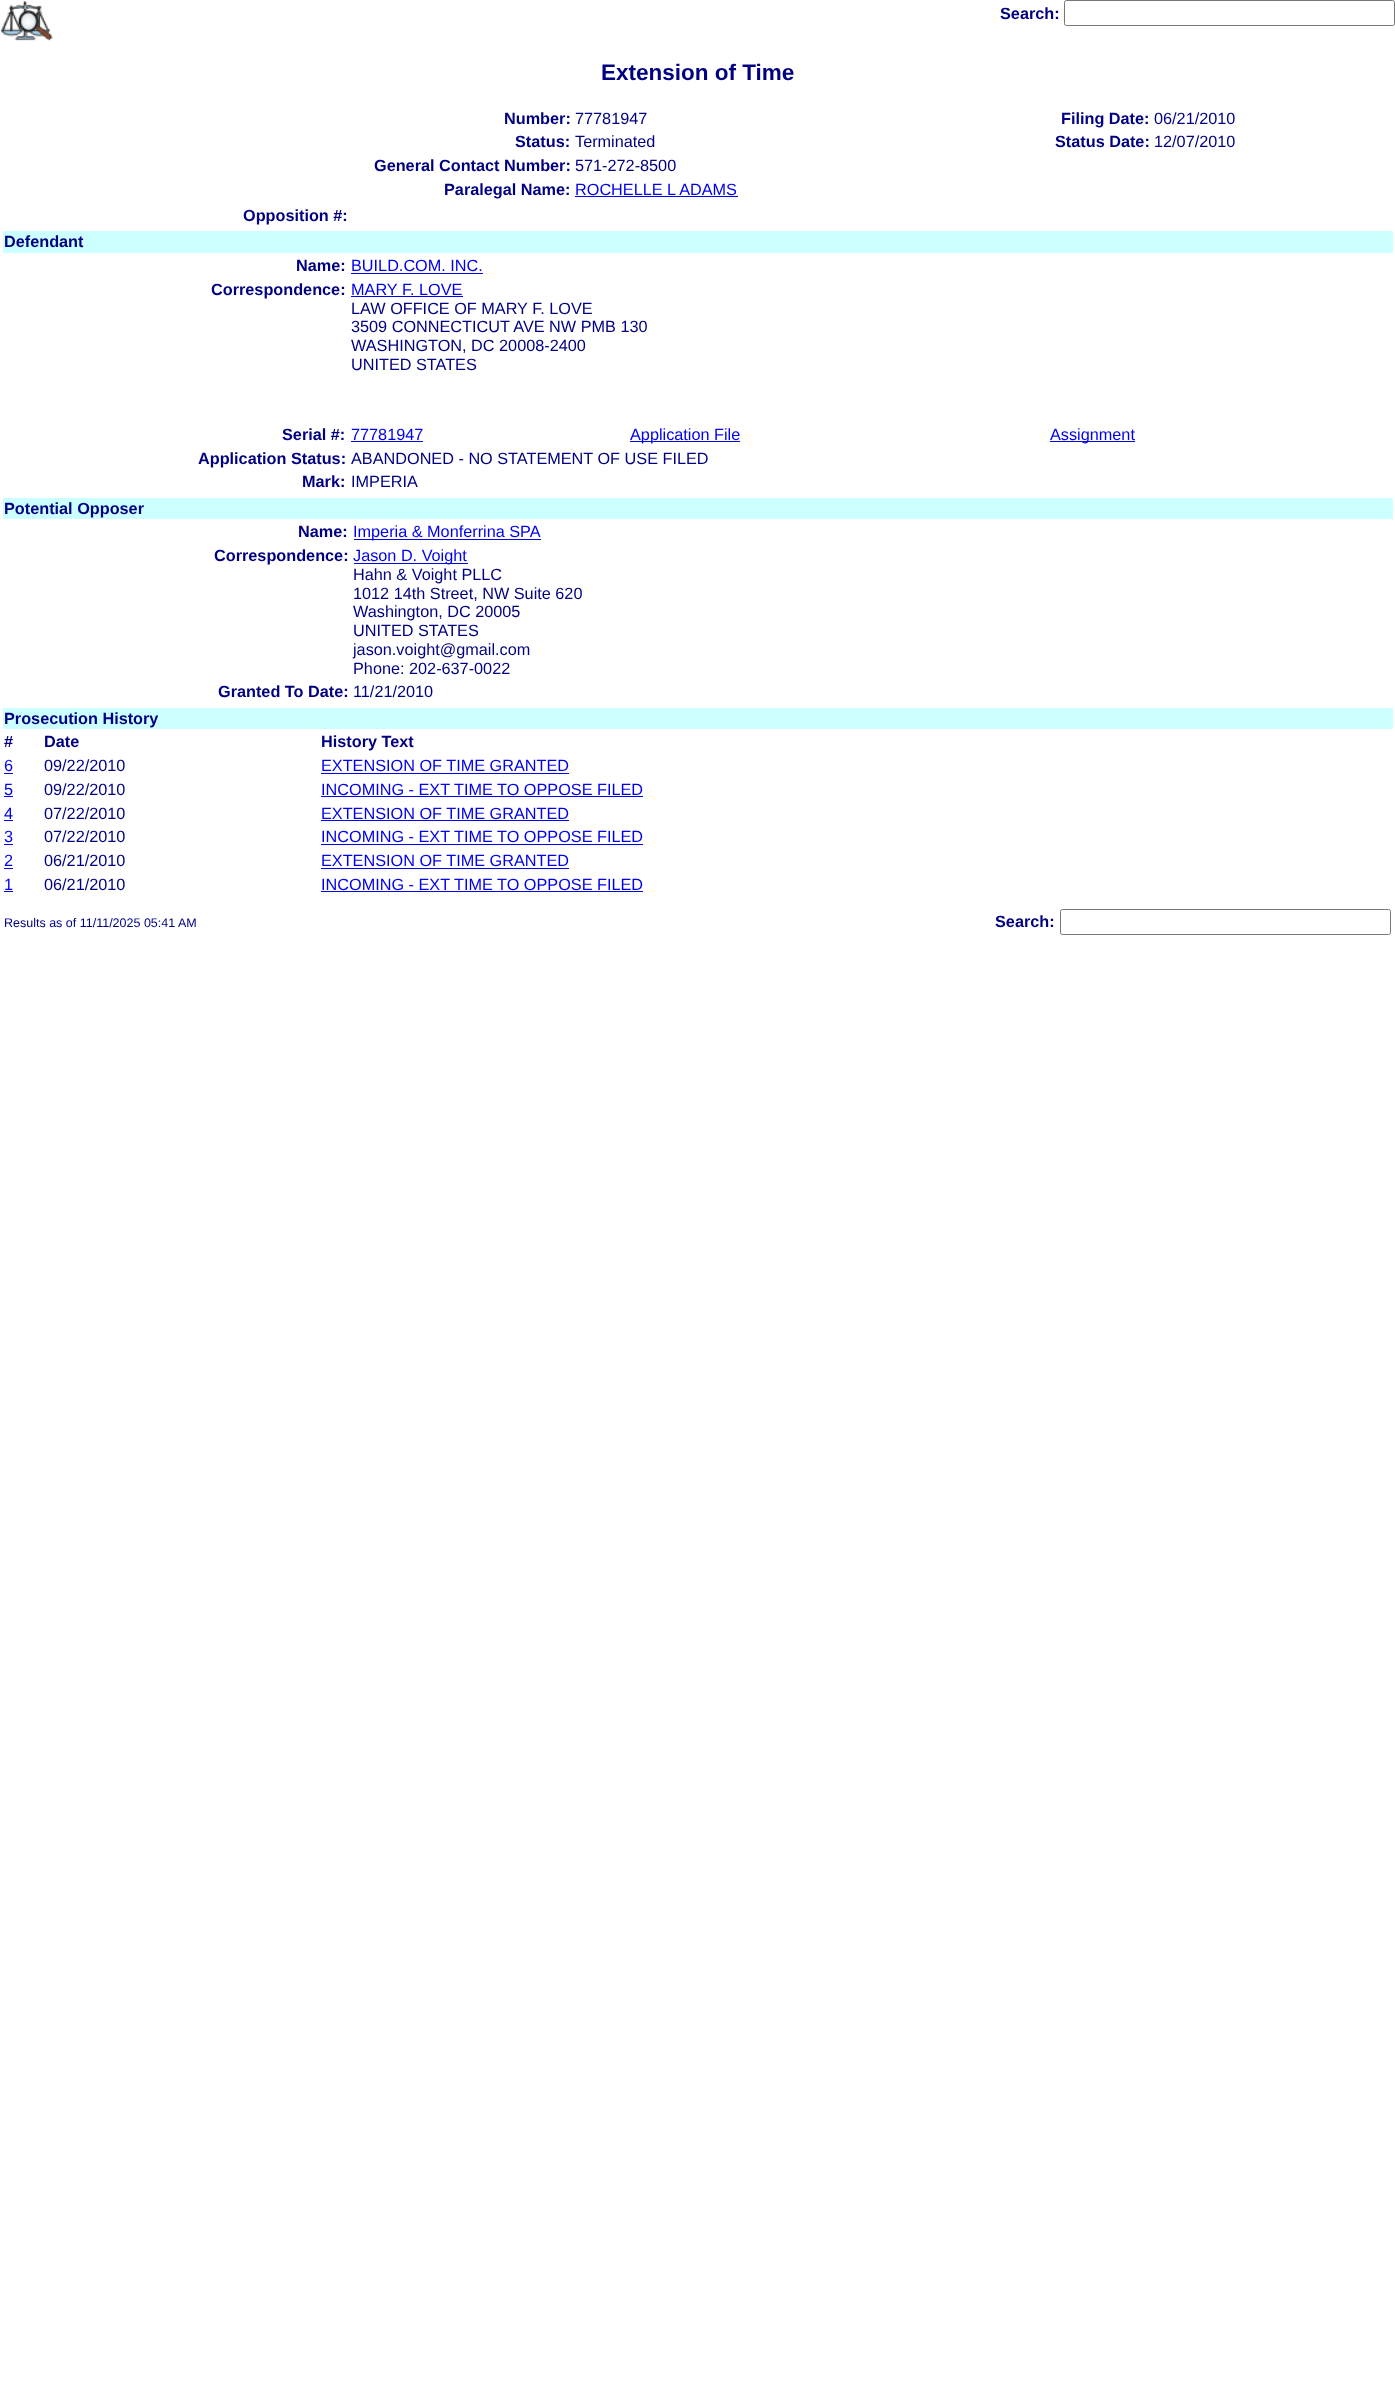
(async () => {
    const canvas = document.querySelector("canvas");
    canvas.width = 1395;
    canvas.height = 2382;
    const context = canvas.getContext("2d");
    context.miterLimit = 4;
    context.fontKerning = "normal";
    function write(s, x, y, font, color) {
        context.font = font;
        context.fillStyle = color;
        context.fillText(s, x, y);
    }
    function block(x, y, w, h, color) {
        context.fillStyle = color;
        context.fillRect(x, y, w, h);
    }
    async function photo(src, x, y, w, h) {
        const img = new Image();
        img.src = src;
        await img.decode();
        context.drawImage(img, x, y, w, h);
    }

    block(0, 0, 1395, 2382, "rgb(255, 255, 255)");
    await photo("media/1.png", 1, 1, 52, 40);
    write("Search:", 1000, 19, "bold 16.25px Liberation Sans", "rgb(0, 0, 128)");
    context.beginPath();
    context.roundRect(1064.5, 0.5, 330, 25, 2);
    context.strokeStyle = "rgb(118, 118, 118)";
    context.stroke();
    write("Extension of Time", 601, 80, "bold 22.5px Liberation Sans", "rgb(0, 0, 128)");
    write("Number:", 504, 124, "bold 16.25px Liberation Sans", "rgb(0, 0, 128)");
    write("77781947", 575, 124, "16.25px Liberation Sans", "rgb(0, 0, 128)");
    write("Filing Date:", 1061, 124, "bold 16.25px Liberation Sans", "rgb(0, 0, 128)");
    write("06/21/2010", 1154, 124, "16.25px Liberation Sans", "rgb(0, 0, 128)");
    write("Status:", 515, 147, "bold 16.25px Liberation Sans", "rgb(0, 0, 128)");
    write("Terminated", 575, 147, "16.25px Liberation Sans", "rgb(0, 0, 128)");
    write("Status Date:", 1055, 147, "bold 16.25px Liberation Sans", "rgb(0, 0, 128)");
    write("12/07/2010", 1154, 147, "16.25px Liberation Sans", "rgb(0, 0, 128)");
    write("General Contact Number:", 374, 171, "bold 16.25px Liberation Sans", "rgb(0, 0, 128)");
    write("571-272-8500", 575, 171, "16.25px Liberation Sans", "rgb(0, 0, 128)");
    write("Paralegal Name:", 444, 195, "bold 16.25px Liberation Sans", "rgb(0, 0, 128)");
    write("ROCHELLE L ADAMS", 575, 195, "16.25px Liberation Sans", "rgb(0, 0, 238)");
    block(575, 196, 163, 1, "rgb(0, 0, 238)");
    write("Opposition #:", 243, 221, "bold 16.25px Liberation Sans", "rgb(0, 0, 128)");
    block(3, 231, 1390, 22, "rgb(204, 255, 255)");
    write("Defendant", 4, 247, "bold 16.25px Liberation Sans", "rgb(0, 0, 128)");
    write("Name:", 296, 271, "bold 16.25px Liberation Sans", "rgb(0, 0, 128)");
    write("BUILD.COM. INC.", 351, 271, "16.25px Liberation Sans", "rgb(0, 0, 238)");
    block(351, 273, 132, 1, "rgb(0, 0, 238)");
    write("Correspondence:", 211, 295, "bold 16.25px Liberation Sans", "rgb(0, 0, 128)");
    write("MARY F. LOVE", 351, 295, "16.25px Liberation Sans", "rgb(0, 0, 238)");
    block(351, 296, 112, 1, "rgb(0, 0, 238)");
    write("LAW OFFICE OF MARY F. LOVE", 351, 314, "16.25px Liberation Sans", "rgb(0, 0, 128)");
    write("3509 CONNECTICUT AVE NW PMB 130", 351, 332, "16.25px Liberation Sans", "rgb(0, 0, 128)");
    write("WASHINGTON, DC 20008-2400", 351, 351, "16.25px Liberation Sans", "rgb(0, 0, 128)");
    write("UNITED STATES", 351, 370, "16.25px Liberation Sans", "rgb(0, 0, 128)");
    write("Serial #:", 282, 440, "bold 16.25px Liberation Sans", "rgb(0, 0, 128)");
    write("77781947", 351, 440, "16.25px Liberation Sans", "rgb(0, 0, 238)");
    block(351, 441, 72, 1, "rgb(0, 0, 238)");
    block(630, 441, 110, 1, "rgb(0, 0, 238)");
    write("Application File", 630, 440, "16.25px Liberation Sans", "rgb(0, 0, 238)");
    block(1050, 441, 85, 1, "rgb(0, 0, 238)");
    write("Assignment", 1050, 440, "16.25px Liberation Sans", "rgb(0, 0, 238)");
    write("Application Status:", 198, 464, "bold 16.25px Liberation Sans", "rgb(0, 0, 128)");
    write("ABANDONED - NO STATEMENT OF USE FILED", 351, 464, "16.25px Liberation Sans", "rgb(0, 0, 128)");
    write("Mark:", 302, 487, "bold 16.25px Liberation Sans", "rgb(0, 0, 128)");
    write("IMPERIA", 351, 487, "16.25px Liberation Sans", "rgb(0, 0, 128)");
    block(3, 498, 1390, 21, "rgb(204, 255, 255)");
    write("Potential Opposer", 4, 514, "bold 16.25px Liberation Sans", "rgb(0, 0, 128)");
    write("Name:", 298, 537, "bold 16.25px Liberation Sans", "rgb(0, 0, 128)");
    block(354, 539, 187, 1, "rgb(0, 0, 238)");
    write("Imperia & Monferrina SPA", 353, 537, "16.25px Liberation Sans", "rgb(0, 0, 238)");
    write("Correspondence:", 214, 561, "bold 16.25px Liberation Sans", "rgb(0, 0, 128)");
    block(354, 563, 114, 1, "rgb(0, 0, 238)");
    write("Jason D. Voight", 353, 561, "16.25px Liberation Sans", "rgb(0, 0, 238)");
    write("Hahn & Voight PLLC", 353, 580, "16.25px Liberation Sans", "rgb(0, 0, 128)");
    write("1012 14th Street, NW Suite 620", 353, 599, "16.25px Liberation Sans", "rgb(0, 0, 128)");
    write("Washington, DC 20005", 353, 617, "16.25px Liberation Sans", "rgb(0, 0, 128)");
    write("UNITED STATES", 353, 636, "16.25px Liberation Sans", "rgb(0, 0, 128)");
    write("jason.voight@gmail.com", 353, 655, "16.25px Liberation Sans", "rgb(0, 0, 128)");
    write("Phone: 202-637-0022", 353, 674, "16.25px Liberation Sans", "rgb(0, 0, 128)");
    write("Granted To Date:", 218, 697, "bold 16.25px Liberation Sans", "rgb(0, 0, 128)");
    write("11/21/2010", 353, 697, "16.25px Liberation Sans", "rgb(0, 0, 128)");
    block(3, 708, 1390, 21, "rgb(204, 255, 255)");
    write("Prosecution History", 4, 724, "bold 16.25px Liberation Sans", "rgb(0, 0, 128)");
    write("#", 4, 747, "bold 16.25px Liberation Sans", "rgb(0, 0, 128)");
    write("Date", 44, 747, "bold 16.25px Liberation Sans", "rgb(0, 0, 128)");
    write("History Text", 321, 747, "bold 16.25px Liberation Sans", "rgb(0, 0, 128)");
    write("6", 4, 771, "16.25px Liberation Sans", "rgb(0, 0, 238)");
    block(4, 773, 9, 1, "rgb(0, 0, 238)");
    write("09/22/2010", 44, 771, "16.25px Liberation Sans", "rgb(0, 0, 128)");
    write("EXTENSION OF TIME GRANTED", 321, 771, "16.25px Liberation Sans", "rgb(0, 0, 238)");
    block(321, 773, 248, 1, "rgb(0, 0, 238)");
    write("5", 4, 795, "16.25px Liberation Sans", "rgb(0, 0, 238)");
    block(4, 796, 9, 1, "rgb(0, 0, 238)");
    write("09/22/2010", 44, 795, "16.25px Liberation Sans", "rgb(0, 0, 128)");
    write("INCOMING - EXT TIME TO OPPOSE FILED", 321, 795, "16.25px Liberation Sans", "rgb(0, 0, 238)");
    block(321, 796, 322, 1, "rgb(0, 0, 238)");
    write("4", 4, 819, "16.25px Liberation Sans", "rgb(0, 0, 238)");
    block(4, 820, 9, 1, "rgb(0, 0, 238)");
    write("07/22/2010", 44, 819, "16.25px Liberation Sans", "rgb(0, 0, 128)");
    write("EXTENSION OF TIME GRANTED", 321, 819, "16.25px Liberation Sans", "rgb(0, 0, 238)");
    block(321, 820, 248, 1, "rgb(0, 0, 238)");
    write("3", 4, 842, "16.25px Liberation Sans", "rgb(0, 0, 238)");
    block(4, 844, 9, 1, "rgb(0, 0, 238)");
    write("07/22/2010", 44, 842, "16.25px Liberation Sans", "rgb(0, 0, 128)");
    write("INCOMING - EXT TIME TO OPPOSE FILED", 321, 842, "16.25px Liberation Sans", "rgb(0, 0, 238)");
    block(321, 844, 322, 1, "rgb(0, 0, 238)");
    write("2", 4, 866, "16.25px Liberation Sans", "rgb(0, 0, 238)");
    block(4, 868, 9, 1, "rgb(0, 0, 238)");
    write("06/21/2010", 44, 866, "16.25px Liberation Sans", "rgb(0, 0, 128)");
    write("EXTENSION OF TIME GRANTED", 321, 866, "16.25px Liberation Sans", "rgb(0, 0, 238)");
    block(321, 868, 248, 1, "rgb(0, 0, 238)");
    write("1", 4, 890, "16.25px Liberation Sans", "rgb(0, 0, 238)");
    block(4, 891, 9, 1, "rgb(0, 0, 238)");
    write("06/21/2010", 44, 890, "16.25px Liberation Sans", "rgb(0, 0, 128)");
    write("INCOMING - EXT TIME TO OPPOSE FILED", 321, 890, "16.25px Liberation Sans", "rgb(0, 0, 238)");
    block(321, 891, 322, 1, "rgb(0, 0, 238)");
    write("Results as of 11/11/2025 05:41 AM", 4, 927, "12.5px Liberation Sans", "rgb(0, 0, 128)");
    write("Search:", 995, 927, "bold 16.25px Liberation Sans", "rgb(0, 0, 128)");
    context.beginPath();
    context.roundRect(1060.5, 909.5, 330, 25, 2);
    context.stroke();
})();
